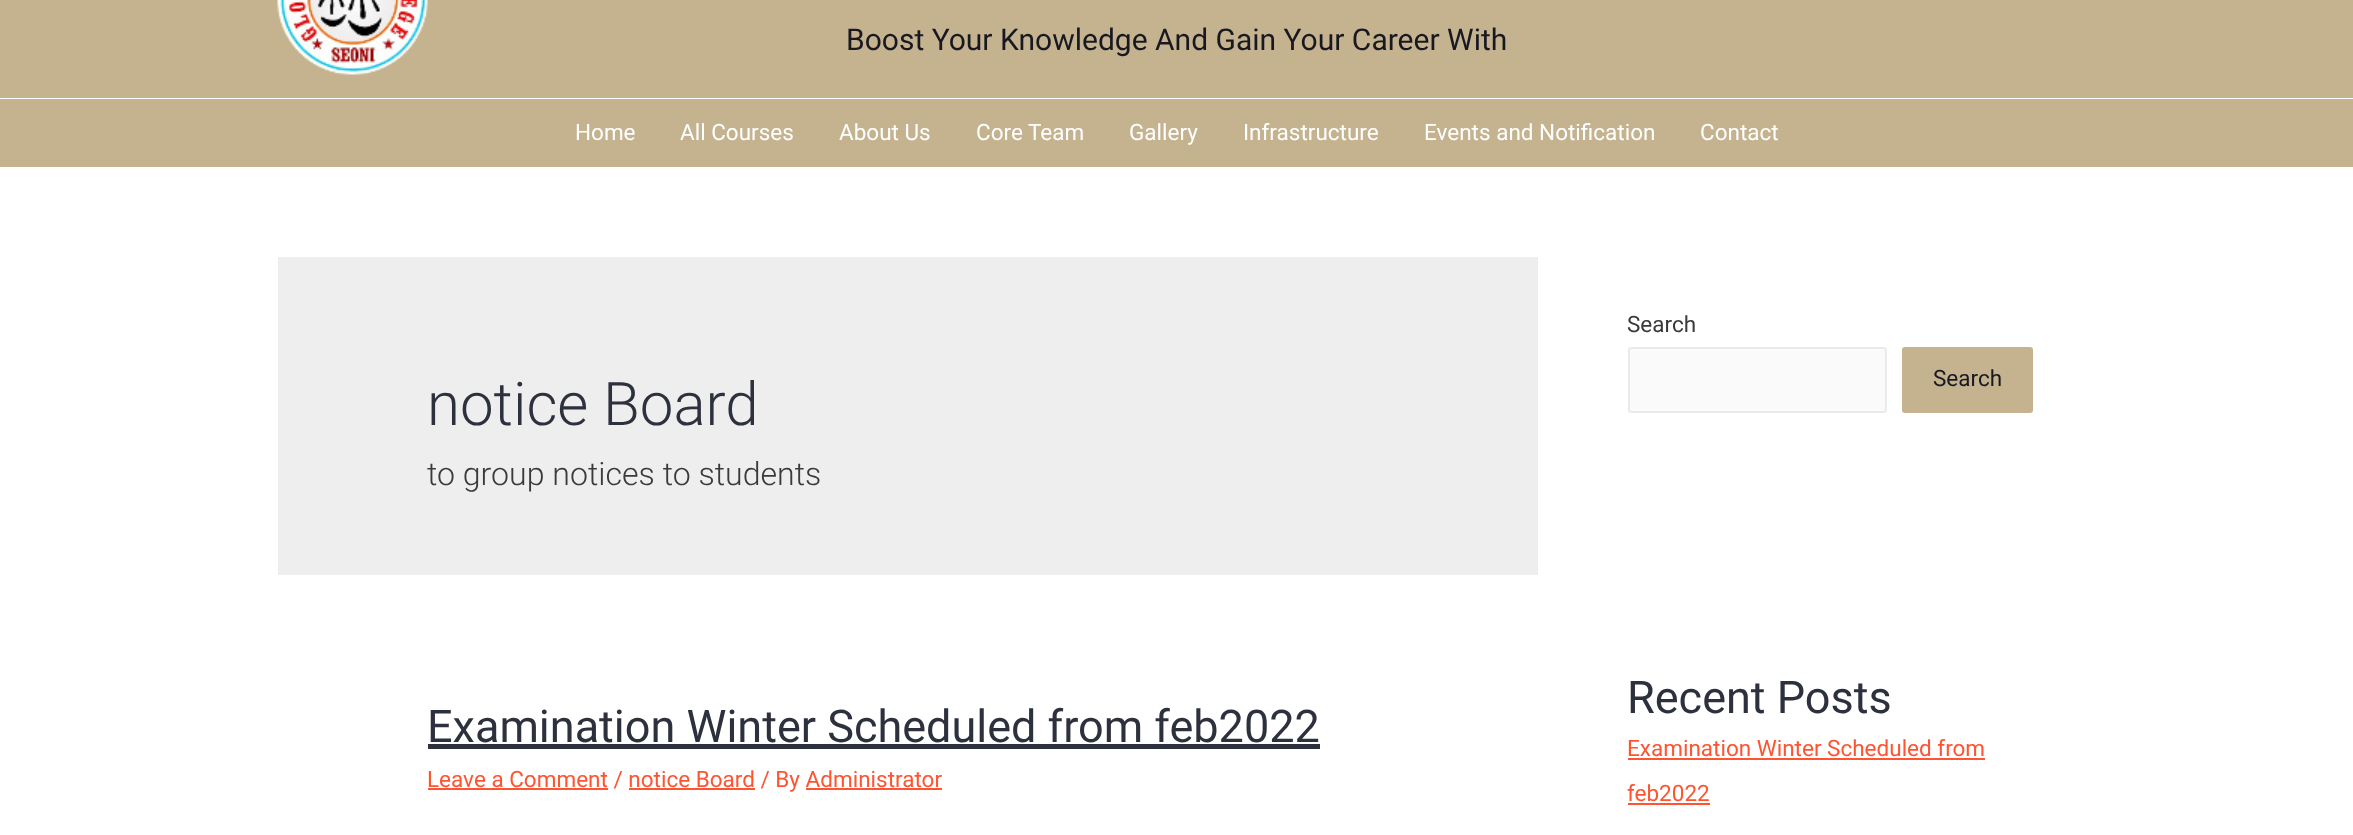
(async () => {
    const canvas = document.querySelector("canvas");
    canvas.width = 2353;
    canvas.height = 835;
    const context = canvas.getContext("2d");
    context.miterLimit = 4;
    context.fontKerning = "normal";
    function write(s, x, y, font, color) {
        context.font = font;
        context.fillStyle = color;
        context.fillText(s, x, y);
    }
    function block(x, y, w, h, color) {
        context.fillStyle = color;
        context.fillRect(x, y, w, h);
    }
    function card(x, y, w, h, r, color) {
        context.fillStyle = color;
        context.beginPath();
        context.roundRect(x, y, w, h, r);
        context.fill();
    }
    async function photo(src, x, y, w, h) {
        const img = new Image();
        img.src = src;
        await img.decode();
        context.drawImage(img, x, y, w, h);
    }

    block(0, 0, 2353, 835, "rgb(255, 255, 255)");
    block(0, 0, 2353, 98, "rgb(197, 179, 144)");
    await photo("media/1.png", 277, 0, 151, 75);
    write("Boost Your Knowledge And Gain Your Career With", 846, 50, "30px Roboto", "rgb(24, 24, 32)");
    block(0, 99, 2353, 68, "rgb(197, 179, 144)");
    write("Home", 575, 140, "22.5px Roboto", "rgb(255, 255, 255)");
    write("All Courses", 680, 140, "22.5px Roboto", "rgb(255, 255, 255)");
    write("About Us", 839, 140, "22.5px Roboto", "rgb(255, 255, 255)");
    write("Core Team", 976, 140, "22.5px Roboto", "rgb(255, 255, 255)");
    write("Gallery", 1129, 140, "22.5px Roboto", "rgb(255, 255, 255)");
    write("Infrastructure", 1243, 140, "22.5px Roboto", "rgb(255, 255, 255)");
    write("Events and Notification", 1424, 140, "22.5px Roboto", "rgb(255, 255, 255)");
    write("Contact", 1700, 140, "22.5px Roboto", "rgb(255, 255, 255)");
    block(278, 257, 1260, 318, "rgb(238, 238, 238)");
    write("notice Board", 427, 425, "300 60px Roboto", "rgb(45, 49, 61)");
    write("to group notices to students", 427, 485, "300 32.1px Roboto", "rgb(58, 58, 58)");
    write("Examination Winter Scheduled from feb2022", 427, 742, "45px Roboto", "rgb(45, 49, 61)");
    block(428, 744, 892, 5, "rgb(45, 49, 61)");
    block(428, 788, 180, 2, "rgb(254, 84, 49)");
    write("Leave a Comment / notice Board / By Administrator", 427, 787, "22.5px Roboto", "rgb(254, 84, 49)");
    block(629, 788, 126, 2, "rgb(254, 84, 49)");
    block(806, 788, 136, 2, "rgb(254, 84, 49)");
    write("Search", 1627, 332, "22.5px Roboto", "rgb(58, 58, 58)");
    context.fillStyle = "rgb(250, 250, 250)";
    context.beginPath();
    context.roundRect(1629, 348, 257, 64, 2);
    context.fill();
    context.strokeStyle = "rgb(234, 234, 234)";
    context.lineWidth = 2;
    context.stroke();
    card(1902, 347, 131, 66, 3, "rgb(197, 179, 144)");
    write("Search", 1933, 386, "22.5px Roboto", "rgb(24, 24, 32)");
    write("Recent Posts", 1627, 713, "45px Roboto", "rgb(45, 49, 61)");
    write("Examination Winter Scheduled from", 1627, 756, "22.5px Roboto", "rgb(254, 84, 49)");
    block(1628, 758, 357, 2, "rgb(254, 84, 49)");
    write("feb2022", 1627, 801, "22.5px Roboto", "rgb(254, 84, 49)");
    block(1628, 803, 82, 2, "rgb(254, 84, 49)");
})();
